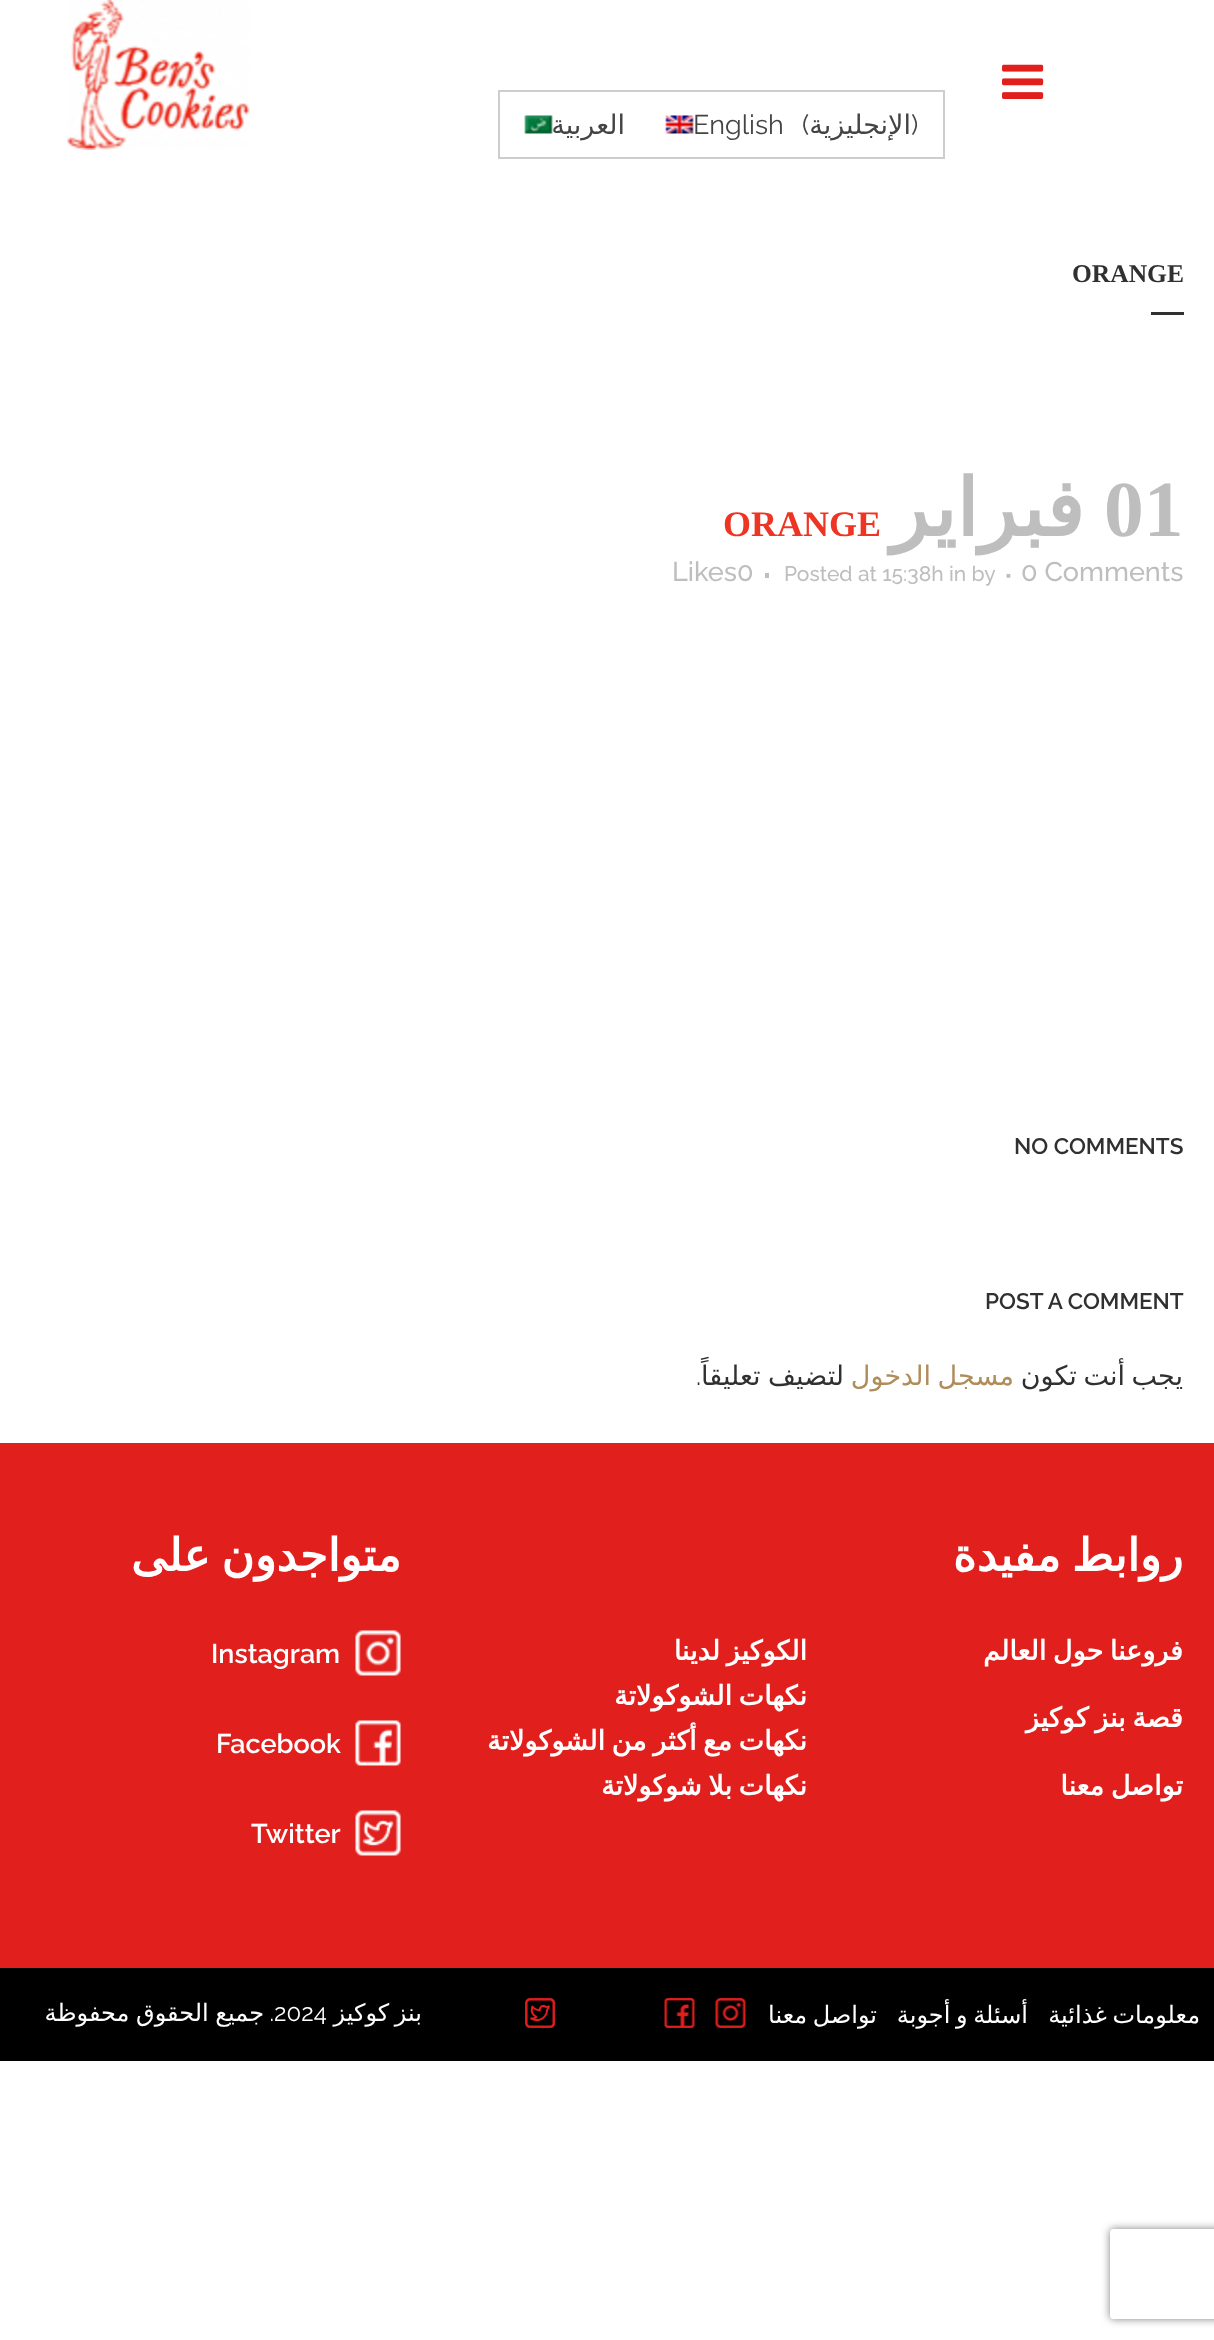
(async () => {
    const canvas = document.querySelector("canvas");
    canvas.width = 1214;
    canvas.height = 2340;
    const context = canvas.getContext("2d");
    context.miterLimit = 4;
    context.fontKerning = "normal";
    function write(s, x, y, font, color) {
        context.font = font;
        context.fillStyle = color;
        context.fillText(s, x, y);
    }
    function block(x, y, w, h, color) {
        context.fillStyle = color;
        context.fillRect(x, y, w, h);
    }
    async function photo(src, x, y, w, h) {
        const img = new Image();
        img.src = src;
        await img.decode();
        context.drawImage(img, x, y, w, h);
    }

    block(0, 0, 1214, 2340, "rgb(255, 255, 255)");
    await photo("media/1.png", 1002, 64, 42, 35);
    await photo("media/2.png", 67, 0, 183, 150);
    context.strokeStyle = "rgb(205, 205, 205)";
    context.lineWidth = 2;
    context.strokeRect(499, 91, 445, 67);
    write(")", 911, 134, "27px Raleway", "rgb(68, 68, 68)");
    context.direction = "rtl";
    write("الإنجليزية", 911, 134, "27px DejaVu Sans", "rgb(68, 68, 68)");
    context.direction = "ltr";
    write("(", 802, 134, "27px Raleway", "rgb(68, 68, 68)");
    write("English", 693, 134, "27px Raleway", "rgb(68, 68, 68)");
    await photo("media/3.png", 665, 115, 29, 19);
    context.direction = "rtl";
    write("العربية", 625, 134, "27px DejaVu Sans", "rgb(68, 68, 68)");
    await photo("media/4.png", 524, 115, 29, 19);
    context.direction = "ltr";
    write("ORANGE", 1072, 282, "bold 25.5px Liberation Serif", "rgb(48, 48, 48)");
    block(1151, 312, 33, 3, "rgb(48, 48, 48)");
    write("01", 1104, 536, "bold 79.5px Liberation Serif", "rgb(190, 190, 190)");
    context.direction = "rtl";
    write("فبراير", 1084, 536, "bold 79.5px DejaVu Sans", "rgb(190, 190, 190)");
    context.direction = "ltr";
    write("ORANGE", 723, 536, "bold 36px Liberation Serif", "rgb(238, 53, 36)");
    write("0 Comments", 1021, 581, "500 27px Raleway", "rgb(190, 190, 190)");
    await photo("media/5.png", 1006, 573, 5, 5);
    write("Posted at 15:38h in by", 784, 581, "500 21px Raleway", "rgb(190, 190, 190)");
    block(765, 573, 4, 5, "rgb(190, 190, 190)");
    write("0", 737, 581, "500 27px Raleway", "rgb(190, 190, 190)");
    write("Likes", 672, 581, "500 27px Raleway", "rgb(190, 190, 190)");
    write("NO COMMENTS", 1014, 1154, "600 22.5px Raleway", "rgb(48, 48, 48)");
    write("POST A COMMENT", 985, 1309, "600 22.5px Raleway", "rgb(48, 48, 48)");
    context.wordSpacing = "-2px";
    context.direction = "rtl";
    write("يجب أنت تكون", 1183, 1385, "27px DejaVu Sans", "rgb(48, 48, 48)");
    write("مسجل الدخول", 1014, 1385, "27px DejaVu Sans", "rgb(175, 141, 90)");
    context.wordSpacing = "-1px";
    write("لتضيف تعليقاً", 844, 1385, "27px DejaVu Sans", "rgb(48, 48, 48)");
    context.wordSpacing = "0px";
    write(".", 701, 1385, "27px Raleway", "rgb(48, 48, 48)");
    block(0, 1443, 1214, 525, "rgb(225, 31, 29)");
    context.wordSpacing = "-3px";
    write("روابط مفيدة", 1183, 1571, "bold 45px DejaVu Sans", "rgb(255, 255, 255)");
    context.wordSpacing = "-2px";
    write("فروعنا حول العالم", 1183, 1660, "bold 27px DejaVu Sans", "rgb(255, 255, 255)");
    write("قصة بنز كوكيز", 1183, 1727, "bold 27px DejaVu Sans", "rgb(255, 255, 255)");
    write("تواصل معنا", 1183, 1795, "bold 27px DejaVu Sans", "rgb(255, 255, 255)");
    write("الكوكيز لدينا", 807, 1660, "bold 27px DejaVu Sans", "rgb(255, 255, 255)");
    write("نكهات الشوكولاتة", 807, 1705, "bold 27px DejaVu Sans", "rgb(255, 255, 255)");
    write("نكهات مع أكثر من الشوكولاتة", 807, 1750, "bold 27px DejaVu Sans", "rgb(255, 255, 255)");
    write("نكهات بلا شوكولاتة", 807, 1795, "bold 27px DejaVu Sans", "rgb(255, 255, 255)");
    context.wordSpacing = "-3px";
    write("متواجدون على", 401, 1571, "bold 45px DejaVu Sans", "rgb(255, 255, 255)");
    await photo("media/6.png", 355, 1630, 46, 46);
    context.wordSpacing = "0px";
    context.direction = "ltr";
    write("Instagram", 211, 1663, "600 27px Raleway", "rgb(255, 255, 255)");
    await photo("media/7.png", 355, 1720, 46, 46);
    write("Facebook", 216, 1753, "600 27px Raleway", "rgb(255, 255, 255)");
    await photo("media/8.png", 355, 1810, 46, 46);
    write("Twitter", 251, 1843, "600 27px Raleway", "rgb(255, 255, 255)");
    block(0, 1968, 1214, 93, "rgb(0, 0, 0)");
    context.wordSpacing = "-2px";
    context.direction = "rtl";
    write("معلومات غذائية", 1200, 2023, "24px DejaVu Sans", "rgb(255, 255, 255)");
    write("أسئلة و أجوبة", 1028, 2023, "24px DejaVu Sans", "rgb(255, 255, 255)");
    write("تواصل معنا", 877, 2023, "24px DejaVu Sans", "rgb(255, 255, 255)");
    await photo("media/9.png", 715, 1998, 31, 30);
    await photo("media/10.png", 664, 1998, 31, 30);
    await photo("media/11.png", 525, 1998, 30, 30);
    write("بنز كوكيز", 422, 2021, "24px DejaVu Sans", "rgb(255, 255, 255)");
    context.wordSpacing = "0px";
    context.direction = "ltr";
    write("2024", 274, 2021, "24px Raleway", "rgb(255, 255, 255)");
    context.direction = "rtl";
    write(".", 274, 2021, "24px Raleway", "rgb(255, 255, 255)");
    context.wordSpacing = "-1px";
    write("جميع الحقوق محفوظة", 264, 2021, "24px DejaVu Sans", "rgb(255, 255, 255)");
    context.save();
    context.beginPath();
    context.moveTo(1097, 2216);
    context.lineTo(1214, 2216);
    context.lineTo(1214, 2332);
    context.lineTo(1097, 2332);
    context.closePath();
    context.moveTo(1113, 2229);
    context.lineTo(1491, 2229);
    context.bezierCurveTo(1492.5, 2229, 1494, 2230.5, 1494, 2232);
    context.lineTo(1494, 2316);
    context.bezierCurveTo(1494, 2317.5, 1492.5, 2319, 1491, 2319);
    context.lineTo(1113, 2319);
    context.bezierCurveTo(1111.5, 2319, 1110, 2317.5, 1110, 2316);
    context.lineTo(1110, 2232);
    context.bezierCurveTo(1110, 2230.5, 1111.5, 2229, 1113, 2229);
    context.closePath();
    context.clip("evenodd");
    context.fillStyle = "rgb(128, 128, 128)";
    context.filter = "blur(4px)";
    context.beginPath();
    context.roundRect(1110, 2229, 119, 90, 3);
    context.fill();
    context.filter = "none";
    context.restore();
})();
